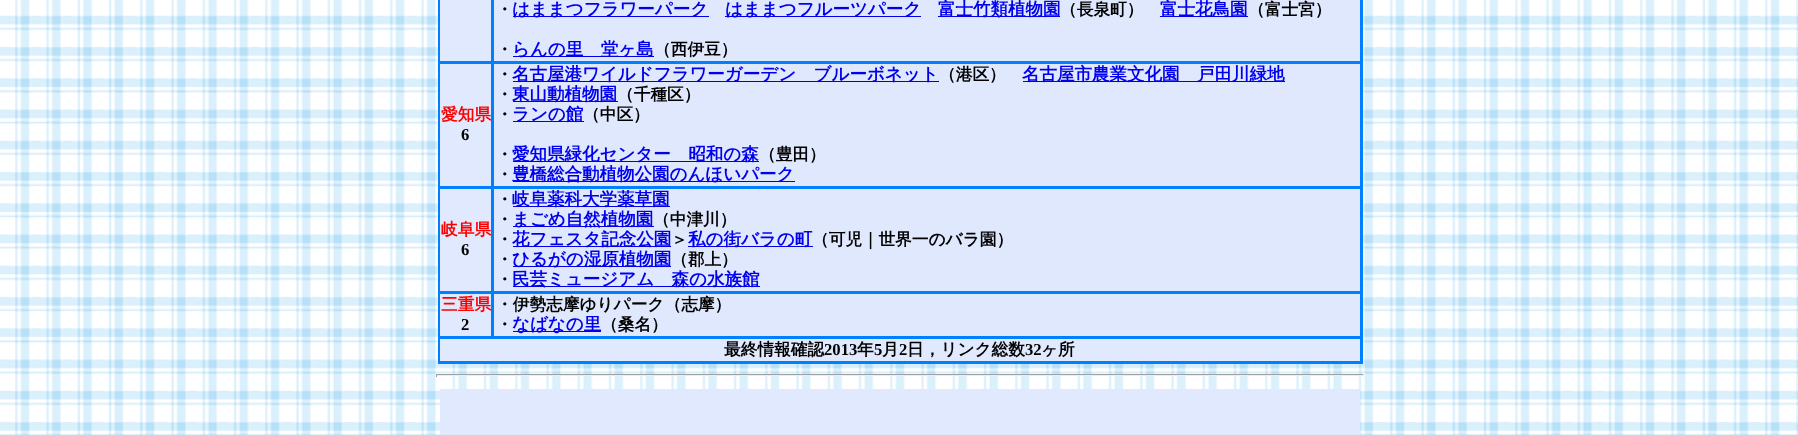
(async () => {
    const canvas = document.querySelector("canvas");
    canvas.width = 1798;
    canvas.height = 435;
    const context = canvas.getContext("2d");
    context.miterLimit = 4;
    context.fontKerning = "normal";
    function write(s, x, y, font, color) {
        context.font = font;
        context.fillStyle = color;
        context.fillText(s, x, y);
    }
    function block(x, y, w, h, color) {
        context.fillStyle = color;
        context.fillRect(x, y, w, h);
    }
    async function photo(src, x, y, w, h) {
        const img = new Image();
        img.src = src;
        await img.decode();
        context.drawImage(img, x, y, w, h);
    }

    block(0, 0, 1798, 435, "rgb(255, 255, 255)");
    await photo("media/1.png", 0, 0, 1798, 435);
    block(438, 0, 925, 364, "rgb(0, 128, 255)");
    block(440, 0, 51, 61, "rgb(224, 233, 254)");
    block(494, 0, 866, 61, "rgb(224, 232, 254)");
    write("・", 496, 15, "bold 16.7px WenQuanYi Zen Hei", "rgb(0, 0, 0)");
    block(513, 16, 196, 1, "rgb(0, 0, 238)");
    write("はままつフラワーパーク", 512, 15, "bold 17.5px WenQuanYi Zen Hei", "rgb(0, 0, 238)");
    block(725, 16, 196, 1, "rgb(0, 0, 238)");
    write("はままつフルーツパーク", 725, 15, "bold 17.5px WenQuanYi Zen Hei", "rgb(0, 0, 238)");
    block(938, 16, 122, 1, "rgb(0, 0, 238)");
    write("富士竹類植物園", 938, 15, "bold 17.5px WenQuanYi Zen Hei", "rgb(0, 0, 238)");
    write("（長泉町）", 1060, 15, "bold 16.7px WenQuanYi Zen Hei", "rgb(0, 0, 0)");
    block(1160, 16, 88, 1, "rgb(0, 0, 238)");
    write("富士花鳥園", 1160, 15, "bold 17.5px WenQuanYi Zen Hei", "rgb(0, 0, 238)");
    write("（富士宮）", 1248, 15, "bold 16.7px WenQuanYi Zen Hei", "rgb(0, 0, 0)");
    write("・", 496, 55, "bold 16.7px WenQuanYi Zen Hei", "rgb(0, 0, 0)");
    block(513, 56, 141, 1, "rgb(0, 0, 238)");
    write("らんの里　堂ヶ島", 512, 55, "bold 17.5px WenQuanYi Zen Hei", "rgb(0, 0, 238)");
    write("（西伊豆）", 654, 55, "bold 16.7px WenQuanYi Zen Hei", "rgb(0, 0, 0)");
    block(440, 64, 51, 122, "rgb(224, 233, 254)");
    write("愛知県", 441, 120, "bold 16.7px WenQuanYi Zen Hei", "rgb(255, 0, 0)");
    write("6", 461, 140, "bold 16.7px Liberation Serif", "rgb(0, 0, 0)");
    block(494, 64, 866, 122, "rgb(224, 232, 254)");
    write("・", 496, 80, "bold 16.7px WenQuanYi Zen Hei", "rgb(0, 0, 0)");
    block(513, 81, 426, 1, "rgb(0, 0, 238)");
    write("名古屋港ワイルドフラワーガーデン　ブルーボネット", 512, 80, "bold 17.5px WenQuanYi Zen Hei", "rgb(0, 0, 238)");
    write("（港区）", 939, 80, "bold 16.7px WenQuanYi Zen Hei", "rgb(0, 0, 0)");
    block(1023, 81, 262, 1, "rgb(0, 0, 238)");
    write("名古屋市農業文化園　戸田川緑地", 1022, 80, "bold 17.5px WenQuanYi Zen Hei", "rgb(0, 0, 238)");
    write("・", 496, 100, "bold 16.7px WenQuanYi Zen Hei", "rgb(0, 0, 0)");
    block(513, 101, 105, 1, "rgb(0, 0, 238)");
    write("東山動植物園", 512, 100, "bold 17.5px WenQuanYi Zen Hei", "rgb(0, 0, 238)");
    write("（千種区）", 617, 100, "bold 16.7px WenQuanYi Zen Hei", "rgb(0, 0, 0)");
    write("・", 496, 120, "bold 16.7px WenQuanYi Zen Hei", "rgb(0, 0, 0)");
    block(513, 121, 71, 1, "rgb(0, 0, 238)");
    write("ランの館", 512, 120, "bold 17.5px WenQuanYi Zen Hei", "rgb(0, 0, 238)");
    write("（中区）", 583, 120, "bold 16.7px WenQuanYi Zen Hei", "rgb(0, 0, 0)");
    write("・", 496, 160, "bold 16.7px WenQuanYi Zen Hei", "rgb(0, 0, 0)");
    block(513, 161, 246, 1, "rgb(0, 0, 238)");
    write("愛知県緑化センター　昭和の森", 512, 160, "bold 17.5px WenQuanYi Zen Hei", "rgb(0, 0, 238)");
    write("（豊田）", 759, 160, "bold 16.7px WenQuanYi Zen Hei", "rgb(0, 0, 0)");
    write("・", 496, 180, "bold 16.7px WenQuanYi Zen Hei", "rgb(0, 0, 0)");
    block(513, 181, 282, 1, "rgb(0, 0, 238)");
    write("豊橋総合動植物公園のんほいパーク", 512, 180, "bold 17.5px WenQuanYi Zen Hei", "rgb(0, 0, 238)");
    block(440, 189, 51, 102, "rgb(224, 233, 254)");
    write("岐阜県", 441, 235, "bold 16.7px WenQuanYi Zen Hei", "rgb(255, 0, 0)");
    write("6", 461, 255, "bold 16.7px Liberation Serif", "rgb(0, 0, 0)");
    block(494, 189, 866, 102, "rgb(224, 232, 254)");
    write("・", 496, 205, "bold 16.7px WenQuanYi Zen Hei", "rgb(0, 0, 0)");
    block(513, 206, 157, 1, "rgb(0, 0, 238)");
    write("岐阜薬科大学薬草園", 512, 205, "bold 17.5px WenQuanYi Zen Hei", "rgb(0, 0, 238)");
    write("・", 496, 225, "bold 16.7px WenQuanYi Zen Hei", "rgb(0, 0, 0)");
    block(513, 226, 141, 1, "rgb(0, 0, 238)");
    write("まごめ自然植物園", 512, 225, "bold 17.5px WenQuanYi Zen Hei", "rgb(0, 0, 238)");
    write("（中津川）", 653, 225, "bold 16.7px WenQuanYi Zen Hei", "rgb(0, 0, 0)");
    write("・", 496, 245, "bold 16.7px WenQuanYi Zen Hei", "rgb(0, 0, 0)");
    block(513, 246, 158, 1, "rgb(0, 0, 238)");
    write("花フェスタ記念公園", 512, 245, "bold 17.5px WenQuanYi Zen Hei", "rgb(0, 0, 238)");
    write("＞", 671, 245, "bold 16.7px WenQuanYi Zen Hei", "rgb(0, 0, 0)");
    block(688, 246, 125, 1, "rgb(0, 0, 238)");
    write("私の街バラの町", 688, 245, "bold 17.5px WenQuanYi Zen Hei", "rgb(0, 0, 238)");
    write("（可児｜世界一のバラ園）", 812, 245, "bold 16.7px WenQuanYi Zen Hei", "rgb(0, 0, 0)");
    write("・", 496, 265, "bold 16.7px WenQuanYi Zen Hei", "rgb(0, 0, 0)");
    block(513, 266, 158, 1, "rgb(0, 0, 238)");
    write("ひるがの湿原植物園", 512, 265, "bold 17.5px WenQuanYi Zen Hei", "rgb(0, 0, 238)");
    write("（郡上）", 671, 265, "bold 16.7px WenQuanYi Zen Hei", "rgb(0, 0, 0)");
    write("・", 496, 285, "bold 16.7px WenQuanYi Zen Hei", "rgb(0, 0, 0)");
    block(513, 286, 247, 1, "rgb(0, 0, 238)");
    write("民芸ミュージアム　森の水族館", 512, 285, "bold 17.5px WenQuanYi Zen Hei", "rgb(0, 0, 238)");
    block(440, 294, 51, 42, "rgb(224, 233, 254)");
    write("三重県", 441, 310, "bold 16.7px WenQuanYi Zen Hei", "rgb(255, 0, 0)");
    write("2", 461, 330, "bold 16.7px Liberation Serif", "rgb(0, 0, 0)");
    block(494, 294, 866, 42, "rgb(224, 232, 254)");
    write("・伊勢志摩ゆりパーク（志摩）", 496, 310, "bold 16.7px WenQuanYi Zen Hei", "rgb(0, 0, 0)");
    write("・", 496, 330, "bold 16.7px WenQuanYi Zen Hei", "rgb(0, 0, 0)");
    block(513, 331, 88, 1, "rgb(0, 0, 238)");
    write("なばなの里", 512, 330, "bold 17.5px WenQuanYi Zen Hei", "rgb(0, 0, 238)");
    write("（桑名）", 601, 330, "bold 16.7px WenQuanYi Zen Hei", "rgb(0, 0, 0)");
    block(440, 339, 920, 22, "rgb(224, 233, 254)");
    write("最終情報確認", 724, 355, "bold 16.7px WenQuanYi Zen Hei", "rgb(0, 0, 0)");
    write("2013", 824, 355, "bold 16.7px Liberation Serif", "rgb(0, 0, 0)");
    write("年", 857, 355, "bold 16.7px WenQuanYi Zen Hei", "rgb(0, 0, 0)");
    write("5", 874, 355, "bold 16.7px Liberation Serif", "rgb(0, 0, 0)");
    write("月", 882, 355, "bold 16.7px WenQuanYi Zen Hei", "rgb(0, 0, 0)");
    write("2", 899, 355, "bold 16.7px Liberation Serif", "rgb(0, 0, 0)");
    write("日，リンク総数", 907, 355, "bold 16.7px WenQuanYi Zen Hei", "rgb(0, 0, 0)");
    write("32", 1025, 355, "bold 16.7px Liberation Serif", "rgb(0, 0, 0)");
    write("ヶ所", 1041, 355, "bold 16.7px WenQuanYi Zen Hei", "rgb(0, 0, 0)");
    block(436, 374, 928, 1, "rgb(159, 159, 159)");
    block(1363, 374, 1, 3, "rgb(238, 238, 238)");
    block(436, 375, 928, 1, "rgb(238, 238, 238)");
    block(436, 374, 1, 3, "rgb(159, 159, 159)");
    block(440, 389, 920, 46, "rgb(224, 233, 254)");
})();
